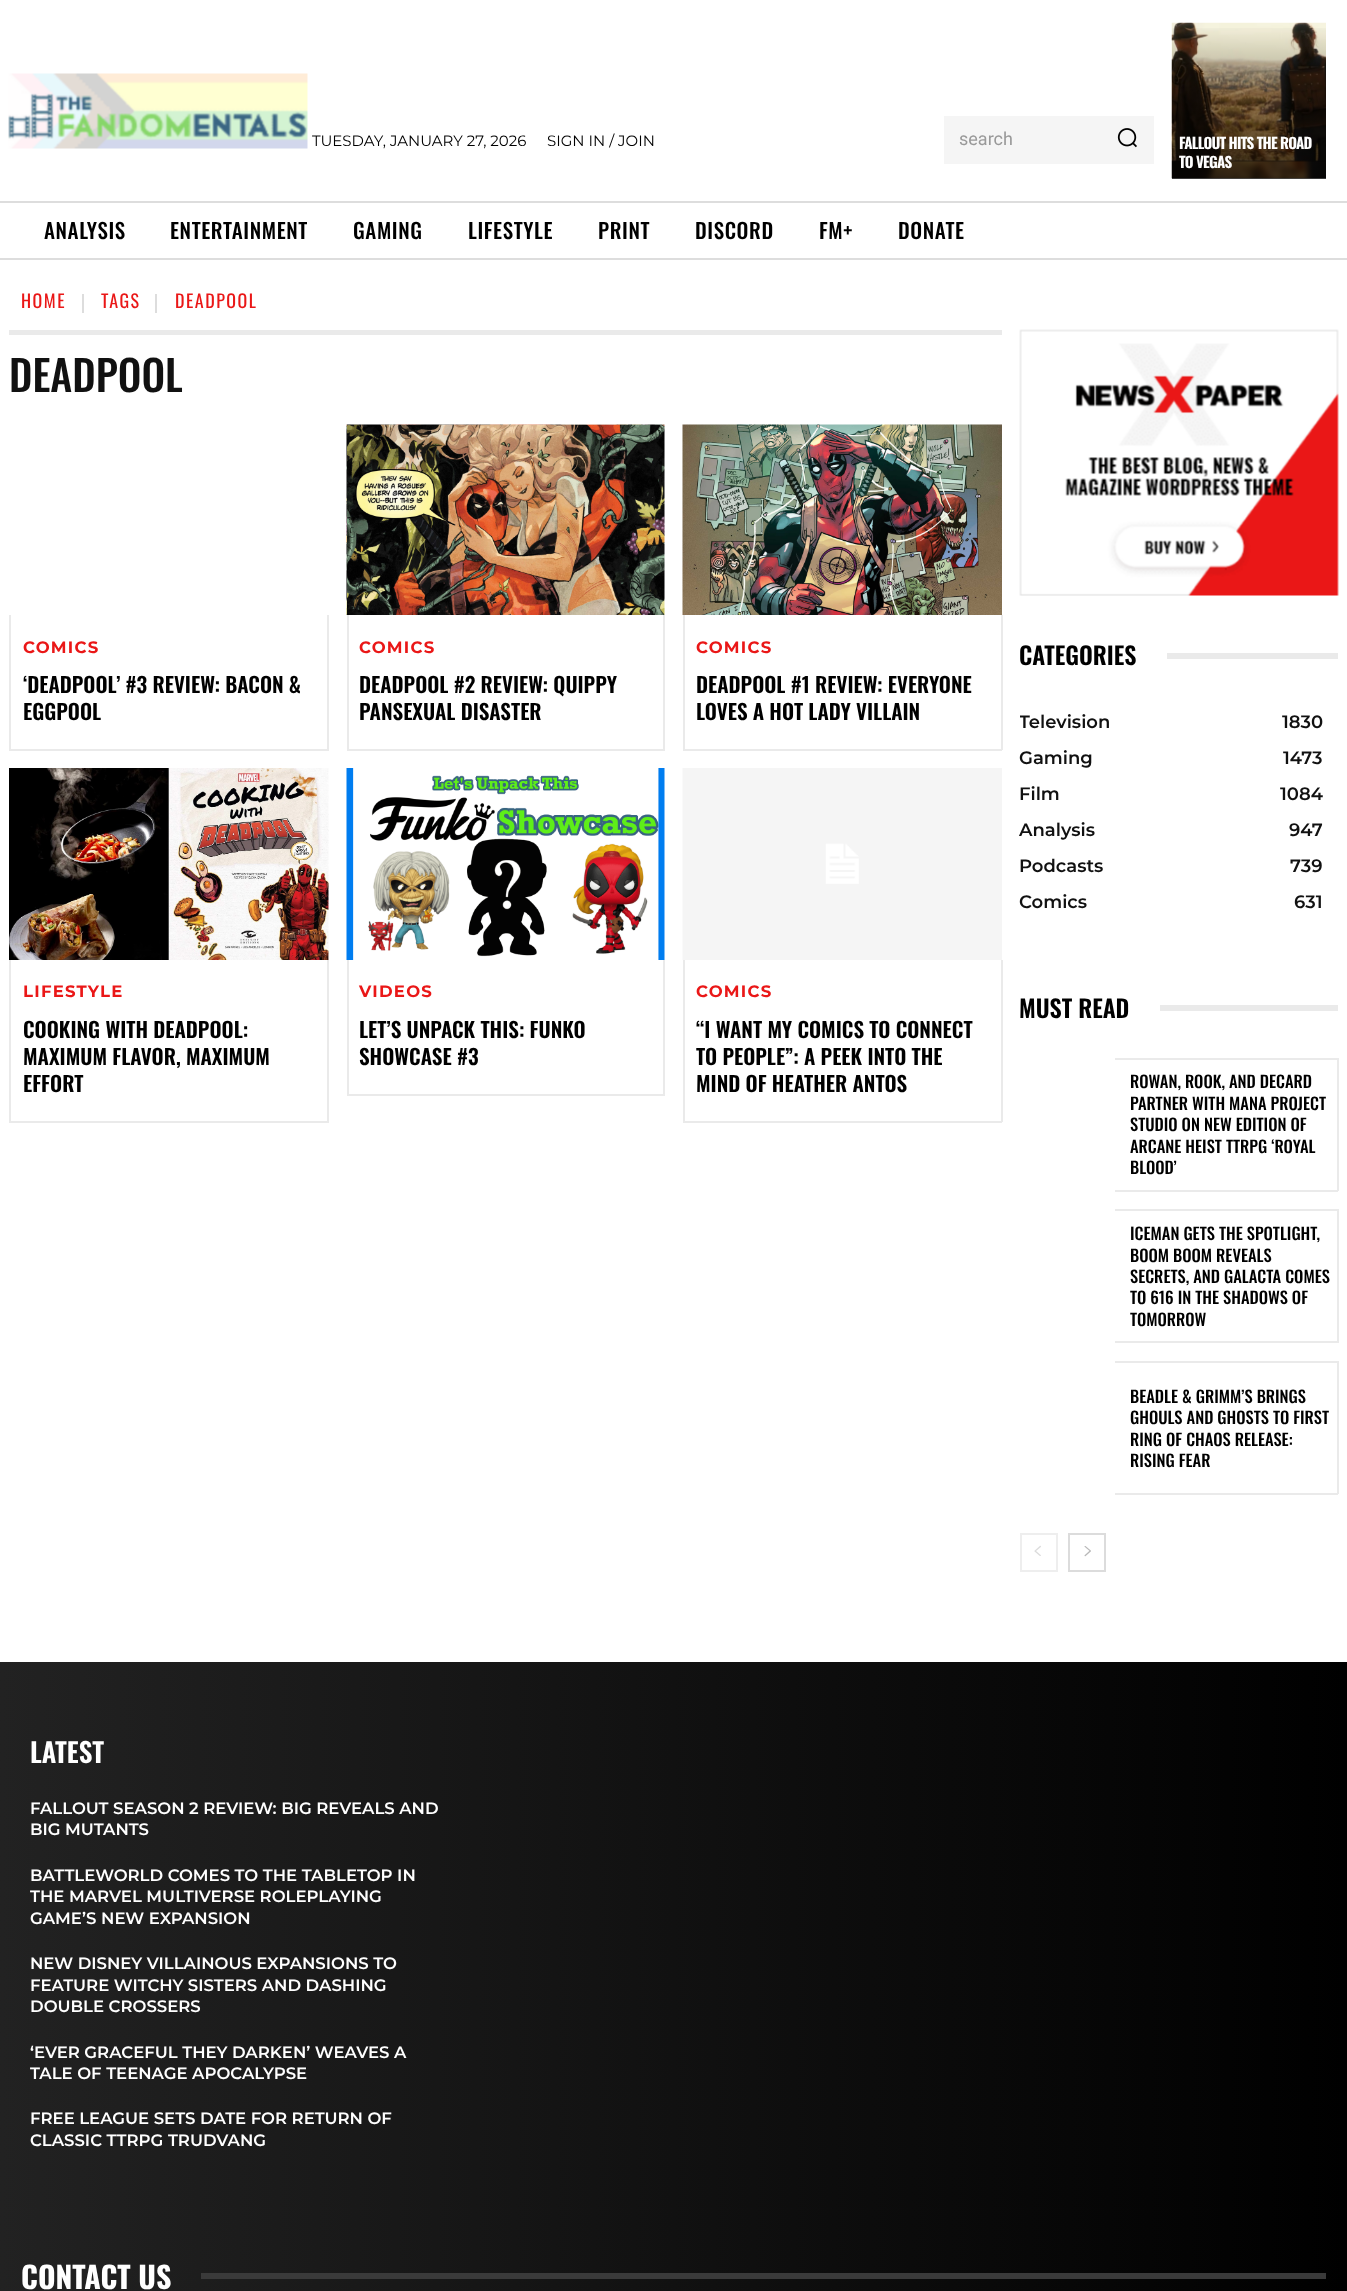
(async () => {
    const canvas = document.querySelector("canvas");
    canvas.width = 1347;
    canvas.height = 2291;
    const context = canvas.getContext("2d");
    context.miterLimit = 4;
    context.fontKerning = "normal";
    function write(s, x, y, font, color) {
        context.font = font;
        context.fillStyle = color;
        context.fillText(s, x, y);
    }
    function block(x, y, w, h, color) {
        context.fillStyle = color;
        context.fillRect(x, y, w, h);
    }
    async function photo(src, x, y, w, h) {
        const img = new Image();
        img.src = src;
        await img.decode();
        context.drawImage(img, x, y, w, h);
    }
    let gradient;

    block(0, 0, 1347, 2291, "rgb(255, 255, 255)");
    await photo("media/1.png", 8, 73, 300, 76);
    write("TUESDAY, JANUARY 27, 2026", 312, 146, "15px Montserrat", "rgb(0, 0, 0)");
    write("SIGN IN / JOIN", 547, 146, "15px Montserrat", "rgb(0, 0, 0)");
    block(944, 116, 210, 48, "rgb(245, 245, 245)");
    write("search", 959, 145, "18px Roboto", "rgb(153, 153, 153)");
    await photo("media/2.png", 1117, 128, 20, 20);
    await photo("media/3.png", 1171, 22, 155, 157);
    gradient = context.createLinearGradient(1249, 179, 1249, 23);
    gradient.addColorStop(0, "rgba(0, 0, 0, 0.7)");
    gradient.addColorStop(1, "rgba(0, 0, 0, 0)");
    context.fillStyle = gradient;
    context.fillRect(1172, 28, 154, 151);
    context.letterSpacing = "-0.75px";
    write("FALLOUT HITS THE ROAD", 1179, 149, "bold 15px Oswald", "rgb(255, 255, 255)");
    write("TO VEGAS", 1179, 168, "bold 15px Oswald", "rgb(255, 255, 255)");
    block(0, 201, 1347, 2, "rgb(221, 221, 221)");
    block(0, 258, 1347, 2, "rgb(221, 221, 221)");
    context.letterSpacing = "0.6px";
    write("ANALYSIS", 44, 239, "500 21px Oswald", "rgb(0, 0, 0)");
    write("ENTERTAINMENT", 170, 239, "500 21px Oswald", "rgb(0, 0, 0)");
    write("GAMING", 353, 239, "500 21px Oswald", "rgb(0, 0, 0)");
    write("LIFESTYLE", 468, 239, "500 21px Oswald", "rgb(0, 0, 0)");
    write("PRINT", 598, 239, "500 21px Oswald", "rgb(0, 0, 0)");
    write("DISCORD", 695, 239, "500 21px Oswald", "rgb(0, 0, 0)");
    write("FM+", 819, 239, "500 21px Oswald", "rgb(0, 0, 0)");
    write("DONATE", 898, 239, "500 21px Oswald", "rgb(0, 0, 0)");
    context.letterSpacing = "1.5px";
    write("HOME", 21, 308, "18px Oswald", "rgb(234, 23, 23)");
    block(82, 294, 2, 19, "rgb(221, 221, 221)");
    write("TAGS", 101, 308, "18px Oswald", "rgb(234, 23, 23)");
    block(155, 294, 2, 19, "rgb(221, 221, 221)");
    write("DEADPOOL", 175, 308, "18px Oswald", "rgb(234, 23, 23)");
    block(9, 330, 993, 5, "rgb(234, 234, 234)");
    context.letterSpacing = "0px";
    write("DEADPOOL", 9, 392, "500 42px Oswald", "rgb(17, 17, 17)");
    block(327, 615, 2, 135, "rgb(234, 234, 234)");
    block(9, 749, 320, 2, "rgb(234, 234, 234)");
    block(9, 615, 2, 135, "rgb(234, 234, 234)");
    context.letterSpacing = "1.25px";
    write("COMICS", 23, 653, "bold 16.5px Montserrat", "rgb(234, 23, 23)");
    context.letterSpacing = "0px";
    write("‘DEADPOOL’ #3 REVIEW: BACON &", 23, 693, "600 21px Oswald", "rgb(0, 0, 0)");
    write("EGGPOOL", 23, 720, "600 21px Oswald", "rgb(0, 0, 0)");
    await photo("media/4.png", 346, 424, 319, 191);
    block(663, 615, 2, 135, "rgb(234, 234, 234)");
    block(347, 749, 318, 2, "rgb(234, 234, 234)");
    block(347, 615, 2, 135, "rgb(234, 234, 234)");
    context.letterSpacing = "1.25px";
    write("COMICS", 359, 653, "bold 16.5px Montserrat", "rgb(234, 23, 23)");
    context.letterSpacing = "0px";
    write("DEADPOOL #2 REVIEW: QUIPPY", 359, 693, "600 21px Oswald", "rgb(0, 0, 0)");
    write("PANSEXUAL DISASTER", 359, 720, "600 21px Oswald", "rgb(0, 0, 0)");
    await photo("media/5.png", 682, 424, 320, 191);
    block(1001, 615, 2, 135, "rgb(234, 234, 234)");
    block(683, 749, 319, 2, "rgb(234, 234, 234)");
    block(683, 615, 2, 135, "rgb(234, 234, 234)");
    context.letterSpacing = "1.25px";
    write("COMICS", 696, 653, "bold 16.5px Montserrat", "rgb(234, 23, 23)");
    context.letterSpacing = "0px";
    write("DEADPOOL #1 REVIEW: EVERYONE", 696, 693, "600 21px Oswald", "rgb(0, 0, 0)");
    write("LOVES A HOT LADY VILLAIN", 696, 720, "600 21px Oswald", "rgb(0, 0, 0)");
    await photo("media/6.png", 9, 768, 320, 192);
    block(327, 960, 2, 162, "rgb(234, 234, 234)");
    block(9, 1121, 320, 2, "rgb(234, 234, 234)");
    block(9, 960, 2, 162, "rgb(234, 234, 234)");
    context.letterSpacing = "1.25px";
    write("LIFESTYLE", 23, 997, "bold 16.5px Montserrat", "rgb(234, 23, 23)");
    context.letterSpacing = "0px";
    write("COOKING WITH DEADPOOL:", 23, 1038, "600 21px Oswald", "rgb(0, 0, 0)");
    write("MAXIMUM FLAVOR, MAXIMUM", 23, 1065, "600 21px Oswald", "rgb(0, 0, 0)");
    write("EFFORT", 23, 1092, "600 21px Oswald", "rgb(0, 0, 0)");
    await photo("media/7.png", 346, 768, 319, 192);
    block(663, 960, 2, 135, "rgb(234, 234, 234)");
    block(347, 1094, 318, 2, "rgb(234, 234, 234)");
    block(347, 960, 2, 135, "rgb(234, 234, 234)");
    context.letterSpacing = "1.25px";
    write("VIDEOS", 359, 997, "bold 16.5px Montserrat", "rgb(234, 23, 23)");
    context.letterSpacing = "0px";
    write("LET’S UNPACK THIS: FUNKO", 359, 1038, "600 21px Oswald", "rgb(0, 0, 0)");
    write("SHOWCASE #3", 359, 1065, "600 21px Oswald", "rgb(0, 0, 0)");
    await photo("media/8.png", 682, 768, 320, 192);
    block(1001, 960, 2, 162, "rgb(234, 234, 234)");
    block(683, 1121, 319, 2, "rgb(234, 234, 234)");
    block(683, 960, 2, 162, "rgb(234, 234, 234)");
    context.letterSpacing = "1.25px";
    write("COMICS", 696, 997, "bold 16.5px Montserrat", "rgb(234, 23, 23)");
    context.letterSpacing = "0px";
    write("“I WANT MY COMICS TO CONNECT", 696, 1038, "600 21px Oswald", "rgb(0, 0, 0)");
    write("TO PEOPLE”: A PEEK INTO THE", 696, 1065, "600 21px Oswald", "rgb(0, 0, 0)");
    write("MIND OF HEATHER ANTOS", 696, 1092, "600 21px Oswald", "rgb(0, 0, 0)");
    await photo("media/9.png", 1019, 329, 320, 267);
    write("CATEGORIES", 1019, 665, "600 24px Oswald", "rgb(0, 0, 0)");
    block(1167, 653, 171, 6, "rgb(234, 234, 234)");
    context.save();
    context.beginPath();
    context.rect(1020, 635, 318, 307);
    context.clip();
    write("Television", 1019, 728, "600 18px Montserrat", "rgb(17, 17, 17)");
    context.restore();
    write("1830", 1282, 728, "600 18px Montserrat", "rgb(17, 17, 17)");
    write("Gaming", 1019, 764, "600 18px Montserrat", "rgb(17, 17, 17)");
    write("1473", 1283, 764, "600 18px Montserrat", "rgb(17, 17, 17)");
    write("Film", 1019, 800, "600 18px Montserrat", "rgb(17, 17, 17)");
    write("1084", 1280, 800, "600 18px Montserrat", "rgb(17, 17, 17)");
    write("Analysis", 1019, 836, "600 18px Montserrat", "rgb(17, 17, 17)");
    write("947", 1289, 836, "600 18px Montserrat", "rgb(17, 17, 17)");
    write("Podcasts", 1019, 872, "600 18px Montserrat", "rgb(17, 17, 17)");
    write("739", 1290, 872, "600 18px Montserrat", "rgb(17, 17, 17)");
    write("Comics", 1019, 908, "600 18px Montserrat", "rgb(17, 17, 17)");
    write("631", 1294, 908, "600 18px Montserrat", "rgb(17, 17, 17)");
    write("MUST READ", 1019, 1018, "600 24px Oswald", "rgb(0, 0, 0)");
    block(1160, 1005, 178, 6, "rgb(234, 234, 234)");
    block(1115, 1058, 223, 2, "rgb(234, 234, 234)");
    block(1337, 1058, 2, 133, "rgb(234, 234, 234)");
    block(1115, 1190, 223, 2, "rgb(234, 234, 234)");
    write("ROWAN, ROOK, AND DECARD", 1130, 1088, "500 16.5px Oswald", "rgb(0, 0, 0)");
    write("PARTNER WITH MANA PROJECT", 1130, 1110, "500 16.5px Oswald", "rgb(0, 0, 0)");
    write("STUDIO ON NEW EDITION OF", 1130, 1131, "500 16.5px Oswald", "rgb(0, 0, 0)");
    write("ARCANE HEIST TTRPG ‘ROYAL", 1130, 1153, "500 16.5px Oswald", "rgb(0, 0, 0)");
    write("BLOOD’", 1130, 1174, "500 16.5px Oswald", "rgb(0, 0, 0)");
    block(1115, 1209, 223, 2, "rgb(234, 234, 234)");
    block(1337, 1209, 2, 134, "rgb(234, 234, 234)");
    block(1115, 1341, 223, 2, "rgb(234, 234, 234)");
    write("ICEMAN GETS THE SPOTLIGHT,", 1130, 1240, "500 16.5px Oswald", "rgb(0, 0, 0)");
    write("BOOM BOOM REVEALS", 1130, 1262, "500 16.5px Oswald", "rgb(0, 0, 0)");
    write("SECRETS, AND GALACTA COMES", 1130, 1283, "500 16.5px Oswald", "rgb(0, 0, 0)");
    write("TO 616 IN THE SHADOWS OF", 1130, 1304, "500 16.5px Oswald", "rgb(0, 0, 0)");
    write("TOMORROW", 1130, 1326, "500 16.5px Oswald", "rgb(0, 0, 0)");
    block(1115, 1361, 223, 2, "rgb(234, 234, 234)");
    block(1337, 1361, 2, 133, "rgb(234, 234, 234)");
    block(1115, 1493, 223, 2, "rgb(234, 234, 234)");
    write("BEADLE & GRIMM’S BRINGS", 1130, 1403, "500 16.5px Oswald", "rgb(0, 0, 0)");
    write("GHOULS AND GHOSTS TO FIRST", 1130, 1424, "500 16.5px Oswald", "rgb(0, 0, 0)");
    write("RING OF CHAOS RELEASE:", 1130, 1446, "500 16.5px Oswald", "rgb(0, 0, 0)");
    write("RISING FEAR", 1130, 1467, "500 16.5px Oswald", "rgb(0, 0, 0)");
    context.strokeStyle = "rgb(238, 238, 238)";
    context.lineWidth = 2;
    context.strokeRect(1021, 1534, 36, 37);
    await photo("media/10.png", 1034, 1545, 7, 11);
    context.strokeStyle = "rgb(220, 220, 220)";
    context.strokeRect(1069, 1534, 36, 37);
    await photo("media/11.png", 1084, 1546, 7, 11);
    gradient = context.createLinearGradient(1347, 2119, 0, 2119);
    gradient.addColorStop(0, "rgb(0, 0, 0)");
    gradient.addColorStop(1, "rgb(34, 34, 34)");
    context.fillStyle = gradient;
    context.fillRect(0, 1662, 1347, 629);
    write("LATEST", 30, 1763, "600 27px Oswald", "rgb(255, 255, 255)");
    write("FALLOUT SEASON 2 REVIEW: BIG REVEALS AND", 30, 1814, "600 16.5px Montserrat", "rgb(255, 255, 255)");
    write("BIG MUTANTS", 30, 1835, "600 16.5px Montserrat", "rgb(255, 255, 255)");
    write("BATTLEWORLD COMES TO THE TABLETOP IN", 30, 1881, "600 16.5px Montserrat", "rgb(255, 255, 255)");
    write("THE MARVEL MULTIVERSE ROLEPLAYING", 30, 1902, "600 16.5px Montserrat", "rgb(255, 255, 255)");
    write("GAME’S NEW EXPANSION", 30, 1924, "600 16.5px Montserrat", "rgb(255, 255, 255)");
    write("NEW DISNEY VILLAINOUS EXPANSIONS TO", 30, 1969, "600 16.5px Montserrat", "rgb(255, 255, 255)");
    write("FEATURE WITCHY SISTERS AND DASHING", 30, 1991, "600 16.5px Montserrat", "rgb(255, 255, 255)");
    write("DOUBLE CROSSERS", 30, 2012, "600 16.5px Montserrat", "rgb(255, 255, 255)");
    write("‘EVER GRACEFUL THEY DARKEN’ WEAVES A", 30, 2058, "600 16.5px Montserrat", "rgb(255, 255, 255)");
    write("TALE OF TEENAGE APOCALYPSE", 30, 2079, "600 16.5px Montserrat", "rgb(255, 255, 255)");
    write("FREE LEAGUE SETS DATE FOR RETURN OF", 30, 2124, "600 16.5px Montserrat", "rgb(255, 255, 255)");
    write("CLASSIC TTRPG TRUDVANG", 30, 2146, "600 16.5px Montserrat", "rgb(255, 255, 255)");
    write("CONTACT US", 21, 2289, "bold 30px Oswald", "rgb(255, 255, 255)");
    block(201, 2273, 1125, 6, "rgb(58, 58, 58)");
})();
